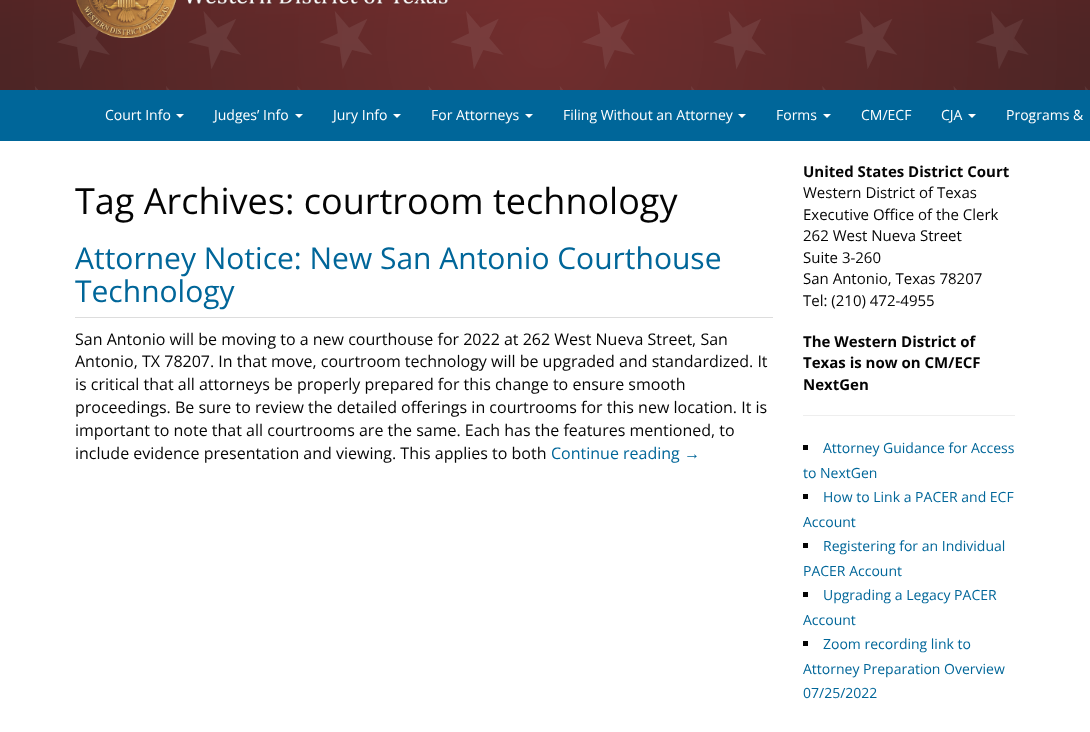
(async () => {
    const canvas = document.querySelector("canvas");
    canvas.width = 1090;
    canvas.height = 732;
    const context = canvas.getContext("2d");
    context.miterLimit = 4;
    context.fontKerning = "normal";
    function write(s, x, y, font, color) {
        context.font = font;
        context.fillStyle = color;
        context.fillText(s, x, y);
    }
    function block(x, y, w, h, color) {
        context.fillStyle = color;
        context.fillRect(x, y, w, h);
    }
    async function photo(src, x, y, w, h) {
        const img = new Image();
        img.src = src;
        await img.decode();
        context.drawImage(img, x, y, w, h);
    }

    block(0, 0, 1090, 732, "rgb(255, 255, 255)");
    await photo("media/1.png", 0, 0, 1090, 90);
    await photo("media/2.png", 76, 0, 372, 38);
    block(0, 90, 1090, 51, "rgb(0, 102, 153)");
    write("Court Info", 105, 120, "14px Open Sans", "rgb(255, 255, 255)");
    context.beginPath();
    context.moveTo(176, 114);
    context.lineTo(184, 114);
    context.lineTo(180, 118);
    context.closePath();
    context.fill();
    write("Judges’ Info", 214, 120, "14px Open Sans", "rgb(255, 255, 255)");
    context.beginPath();
    context.moveTo(295, 114);
    context.lineTo(303, 114);
    context.lineTo(299, 118);
    context.closePath();
    context.fill();
    write("Jury Info", 333, 120, "14px Open Sans", "rgb(255, 255, 255)");
    context.beginPath();
    context.moveTo(393, 114);
    context.lineTo(401, 114);
    context.lineTo(397, 118);
    context.closePath();
    context.fill();
    write("For Attorneys", 431, 120, "14px Open Sans", "rgb(255, 255, 255)");
    context.beginPath();
    context.moveTo(525, 114);
    context.lineTo(533, 114);
    context.lineTo(529, 118);
    context.closePath();
    context.fill();
    write("Filing Without an Attorney", 563, 120, "14px Open Sans", "rgb(255, 255, 255)");
    context.beginPath();
    context.moveTo(738, 114);
    context.lineTo(746, 114);
    context.lineTo(742, 118);
    context.closePath();
    context.fill();
    write("Forms", 776, 120, "14px Open Sans", "rgb(255, 255, 255)");
    context.beginPath();
    context.moveTo(823, 114);
    context.lineTo(831, 114);
    context.lineTo(827, 118);
    context.closePath();
    context.fill();
    write("CM/ECF", 861, 120, "14px Open Sans", "rgb(255, 255, 255)");
    write("CJA", 941, 120, "14px Open Sans", "rgb(255, 255, 255)");
    context.beginPath();
    context.moveTo(968, 114);
    context.lineTo(976, 114);
    context.lineTo(972, 118);
    context.closePath();
    context.fill();
    write("Programs &", 1006, 120, "14px Open Sans", "rgb(255, 255, 255)");
    write("Tag Archives: courtroom technology", 75, 214, "36px Open Sans", "rgb(4, 4, 4)");
    write("Attorney Notice: New San Antonio Courthouse", 75, 269, "30px Open Sans", "rgb(0, 102, 153)");
    write("Technology", 75, 302, "30px Open Sans", "rgb(0, 102, 153)");
    block(75, 317, 698, 1, "rgb(221, 221, 221)");
    write("San Antonio will be moving to a new courthouse for 2022 at 262 West Nueva Street, San", 75, 345, "16px Open Sans", "rgb(4, 4, 4)");
    write("Antonio, TX 78207. In that move, courtroom technology will be upgraded and standardized. It", 75, 367, "16px Open Sans", "rgb(4, 4, 4)");
    write("is critical that all attorneys be properly prepared for this change to ensure smooth", 75, 390, "16px Open Sans", "rgb(4, 4, 4)");
    write("proceedings. Be sure to review the detailed offerings in courtrooms for this new location. It is", 75, 413, "16px Open Sans", "rgb(4, 4, 4)");
    write("important to note that all courtrooms are the same. Each has the features mentioned, to", 75, 436, "16px Open Sans", "rgb(4, 4, 4)");
    write("include evidence presentation and viewing. This applies to both", 75, 459, "16px Open Sans", "rgb(4, 4, 4)");
    write("Continue reading", 551, 459, "16px Open Sans", "rgb(0, 102, 153)");
    write("→", 684, 459, "16px Liberation Sans", "rgb(0, 102, 153)");
    write("United States District Court", 803, 177, "bold 15px Open Sans", "rgb(4, 4, 4)");
    write("Western District of Texas", 803, 198, "15px Open Sans", "rgb(4, 4, 4)");
    write("Executive Office of the Clerk", 803, 220, "15px Open Sans", "rgb(4, 4, 4)");
    write("262 West Nueva Street", 803, 241, "15px Open Sans", "rgb(4, 4, 4)");
    write("Suite 3-260", 803, 263, "15px Open Sans", "rgb(4, 4, 4)");
    write("San Antonio, Texas 78207", 803, 284, "15px Open Sans", "rgb(4, 4, 4)");
    write("Tel: (210) 472-4955", 803, 306, "15px Open Sans", "rgb(4, 4, 4)");
    write("The Western District of", 803, 347, "bold 15px Open Sans", "rgb(4, 4, 4)");
    write("Texas is now on CM/ECF", 803, 368, "bold 15px Open Sans", "rgb(4, 4, 4)");
    write("NextGen", 803, 390, "bold 15px Open Sans", "rgb(4, 4, 4)");
    block(803, 415, 212, 1, "rgb(238, 238, 238)");
    block(803, 445, 5, 5, "rgb(4, 4, 4)");
    write("Attorney Guidance for Access", 823, 453, "14px Open Sans", "rgb(0, 102, 153)");
    write("to NextGen", 803, 478, "14px Open Sans", "rgb(0, 102, 153)");
    block(803, 494, 5, 5, "rgb(4, 4, 4)");
    write("How to Link a PACER and ECF", 823, 502, "14px Open Sans", "rgb(0, 102, 153)");
    write("Account", 803, 527, "14px Open Sans", "rgb(0, 102, 153)");
    block(803, 543, 5, 5, "rgb(4, 4, 4)");
    write("Registering for an Individual", 823, 551, "14px Open Sans", "rgb(0, 102, 153)");
    write("PACER Account", 803, 576, "14px Open Sans", "rgb(0, 102, 153)");
    block(803, 592, 5, 5, "rgb(4, 4, 4)");
    write("Upgrading a Legacy PACER", 823, 600, "14px Open Sans", "rgb(0, 102, 153)");
    write("Account", 803, 625, "14px Open Sans", "rgb(0, 102, 153)");
    block(803, 641, 5, 5, "rgb(4, 4, 4)");
    write("Zoom recording link to", 823, 649, "14px Open Sans", "rgb(0, 102, 153)");
    write("Attorney Preparation Overview", 803, 674, "14px Open Sans", "rgb(0, 102, 153)");
    write("07/25/2022", 803, 698, "14px Open Sans", "rgb(0, 102, 153)");
})();
